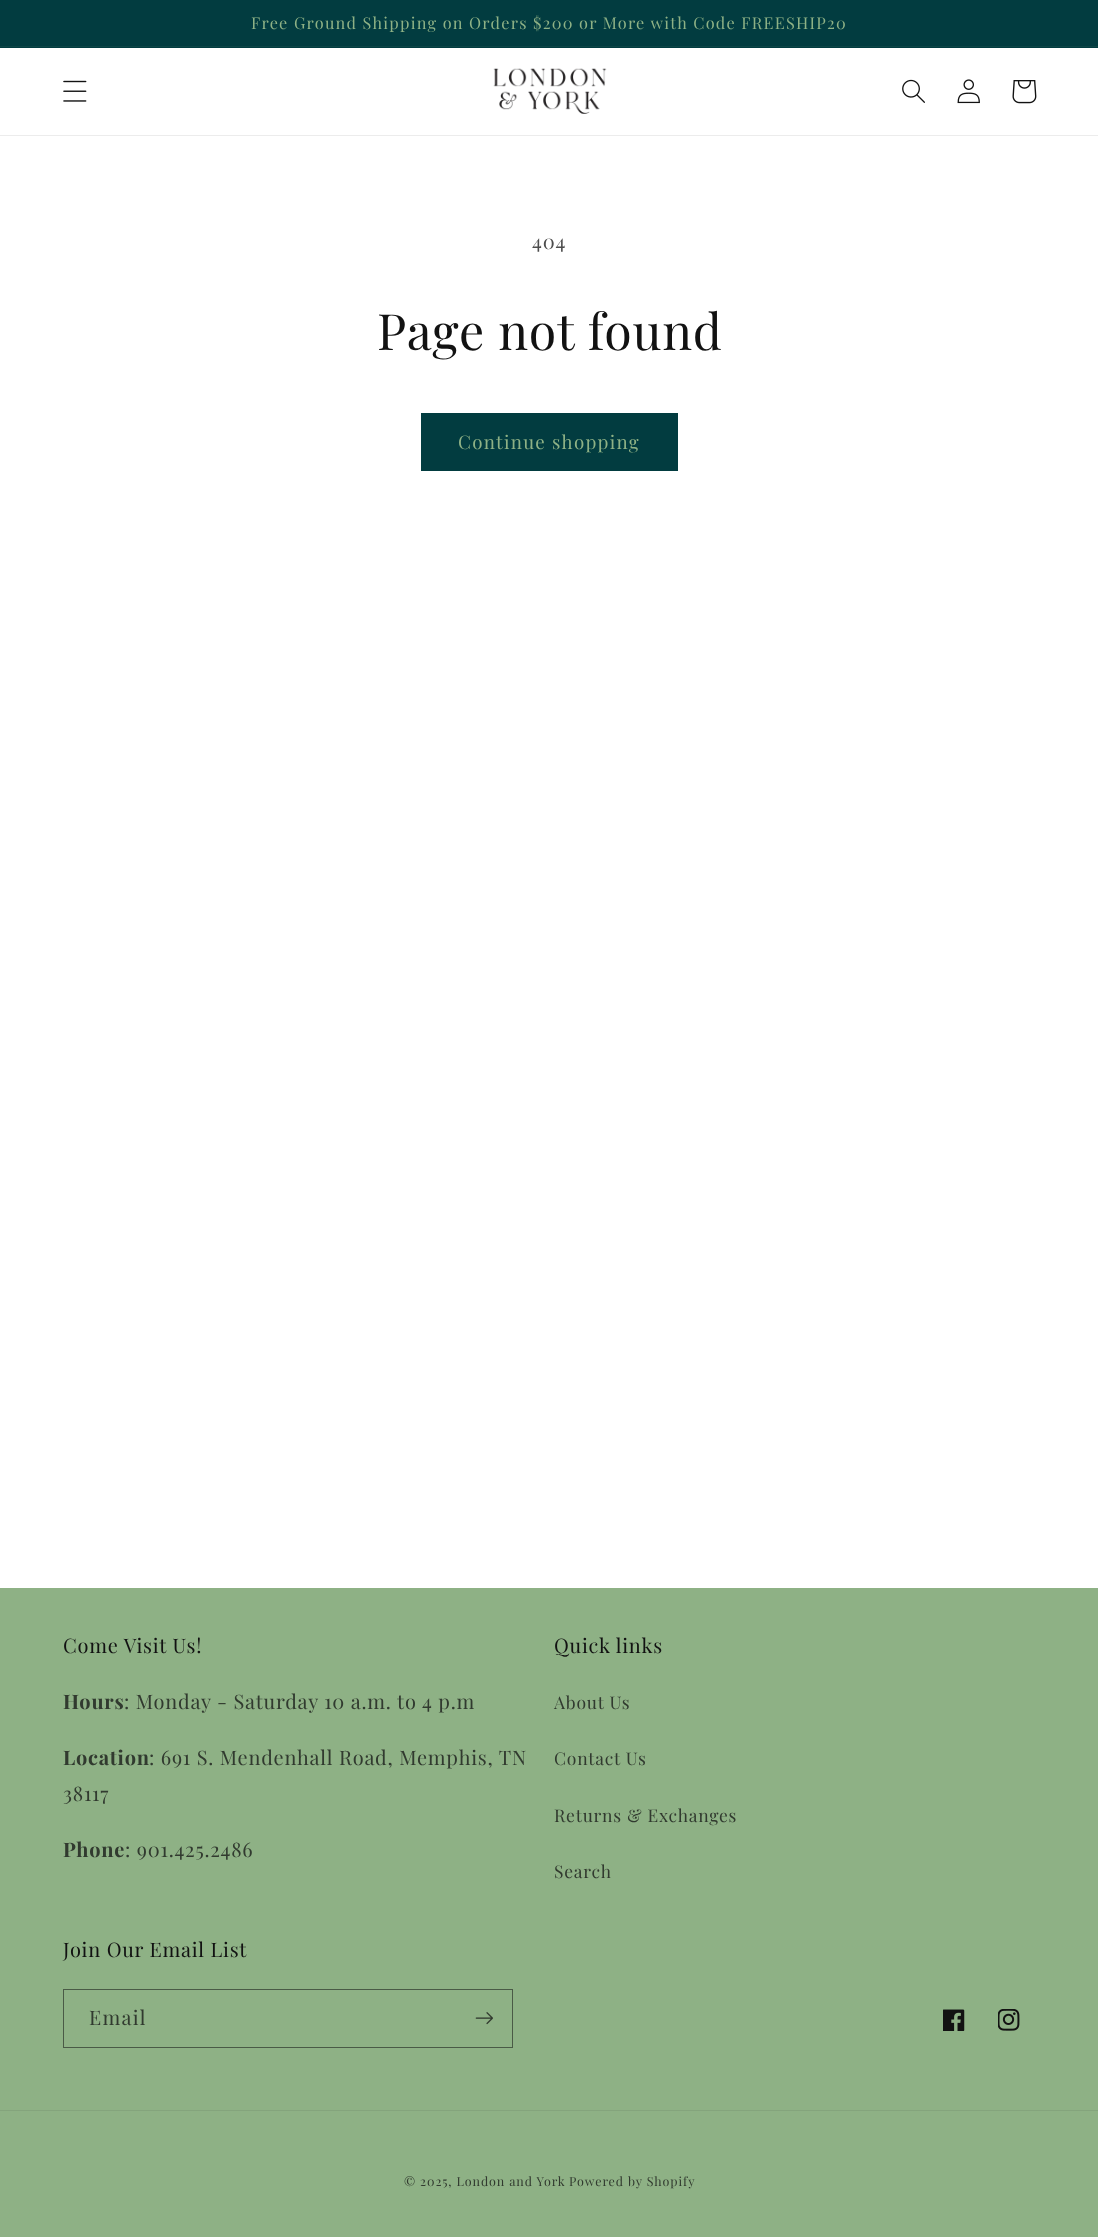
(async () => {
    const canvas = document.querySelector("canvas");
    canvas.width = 1098;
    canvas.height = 2237;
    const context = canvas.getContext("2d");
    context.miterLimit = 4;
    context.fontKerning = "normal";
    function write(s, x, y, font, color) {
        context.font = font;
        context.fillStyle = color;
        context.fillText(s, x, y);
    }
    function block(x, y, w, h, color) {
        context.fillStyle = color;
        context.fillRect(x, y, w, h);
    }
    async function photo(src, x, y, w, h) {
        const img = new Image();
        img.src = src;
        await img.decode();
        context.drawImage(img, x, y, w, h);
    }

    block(0, 0, 1098, 2237, "rgb(255, 255, 255)");
    block(0, 0, 1098, 48, "rgb(2, 60, 64)");
    block(0, 46, 1098, 1, "rgb(13, 69, 70)");
    context.letterSpacing = "1.25px";
    write("Free Ground Shipping on Orders $200 or More with Code FREESHIP20", 251, 29, "16.25px Playfair Display", "rgb(142, 177, 133)");
    block(0, 135, 1098, 1, "rgb(236, 236, 236)");
    await photo("media/1.png", 63, 80, 24, 22);
    await photo("media/2.png", 493, 68, 114, 46);
    await photo("media/3.png", 902, 79, 23, 24);
    await photo("media/4.png", 957, 79, 23, 25);
    await photo("media/5.png", 1012, 80, 25, 24);
    context.letterSpacing = "0.75px";
    write("404", 532, 249, "20px Playfair Display", "rgb(77, 77, 77)");
    write("Page not found", 377, 350, "50px Playfair Display", "rgb(18, 18, 18)");
    block(421, 413, 257, 58, "rgb(2, 60, 64)");
    context.letterSpacing = "1.25px";
    write("Continue shopping", 458, 449, "18.75px Playfair Display", "rgb(142, 177, 133)");
    block(0, 1588, 1098, 649, "rgb(142, 177, 133)");
    context.letterSpacing = "0.75px";
    write("Come Visit Us!", 63, 1653, "20px Playfair Display", "rgb(18, 18, 18)");
    write("Hours", 63, 1709, "bold 20px Playfair Display", "rgb(49, 58, 47)");
    write(": Monday - Saturday 10 a.m. to 4 p.m", 124, 1709, "20px Playfair Display", "rgb(49, 58, 47)");
    write("Location", 63, 1765, "bold 20px Playfair Display", "rgb(49, 58, 47)");
    write(": 691 S. Mendenhall Road, Memphis, TN", 149, 1765, "20px Playfair Display", "rgb(49, 58, 47)");
    write("38117", 63, 1801, "20px Playfair Display", "rgb(49, 58, 47)");
    write("Phone", 63, 1857, "bold 20px Playfair Display", "rgb(49, 58, 47)");
    write(": 901.425.2486", 125, 1857, "20px Playfair Display", "rgb(49, 58, 47)");
    write("Quick links", 554, 1653, "20px Playfair Display", "rgb(18, 18, 18)");
    write("About Us", 554, 1709, "17.5px Playfair Display", "rgb(49, 58, 47)");
    write("Contact Us", 554, 1765, "17.5px Playfair Display", "rgb(49, 58, 47)");
    write("Returns & Exchanges", 554, 1822, "17.5px Playfair Display", "rgb(49, 58, 47)");
    write("Search", 554, 1878, "17.5px Playfair Display", "rgb(49, 58, 47)");
    write("Join Our Email List", 63, 1957, "20px Playfair Display", "rgb(18, 18, 18)");
    context.strokeStyle = "rgb(74, 90, 70)";
    context.strokeRect(63.5, 1989.5, 449, 58);
    context.letterSpacing = "1.25px";
    write("Email", 89, 2025, "20px Playfair Display", "rgb(49, 58, 47)");
    await photo("media/6.png", 475, 2012, 18, 13);
    await photo("media/7.png", 943, 2009, 22, 22);
    await photo("media/8.png", 998, 2009, 22, 22);
    block(0, 2110, 1098, 1, "rgb(132, 164, 124)");
    context.letterSpacing = "0.9px";
    write("© 2025, London and York", 404, 2186, "12.5px Playfair Display", "rgb(49, 58, 47)");
    write("Powered by Shopify", 569, 2186, "12.5px Playfair Display", "rgb(49, 58, 47)");
})();
